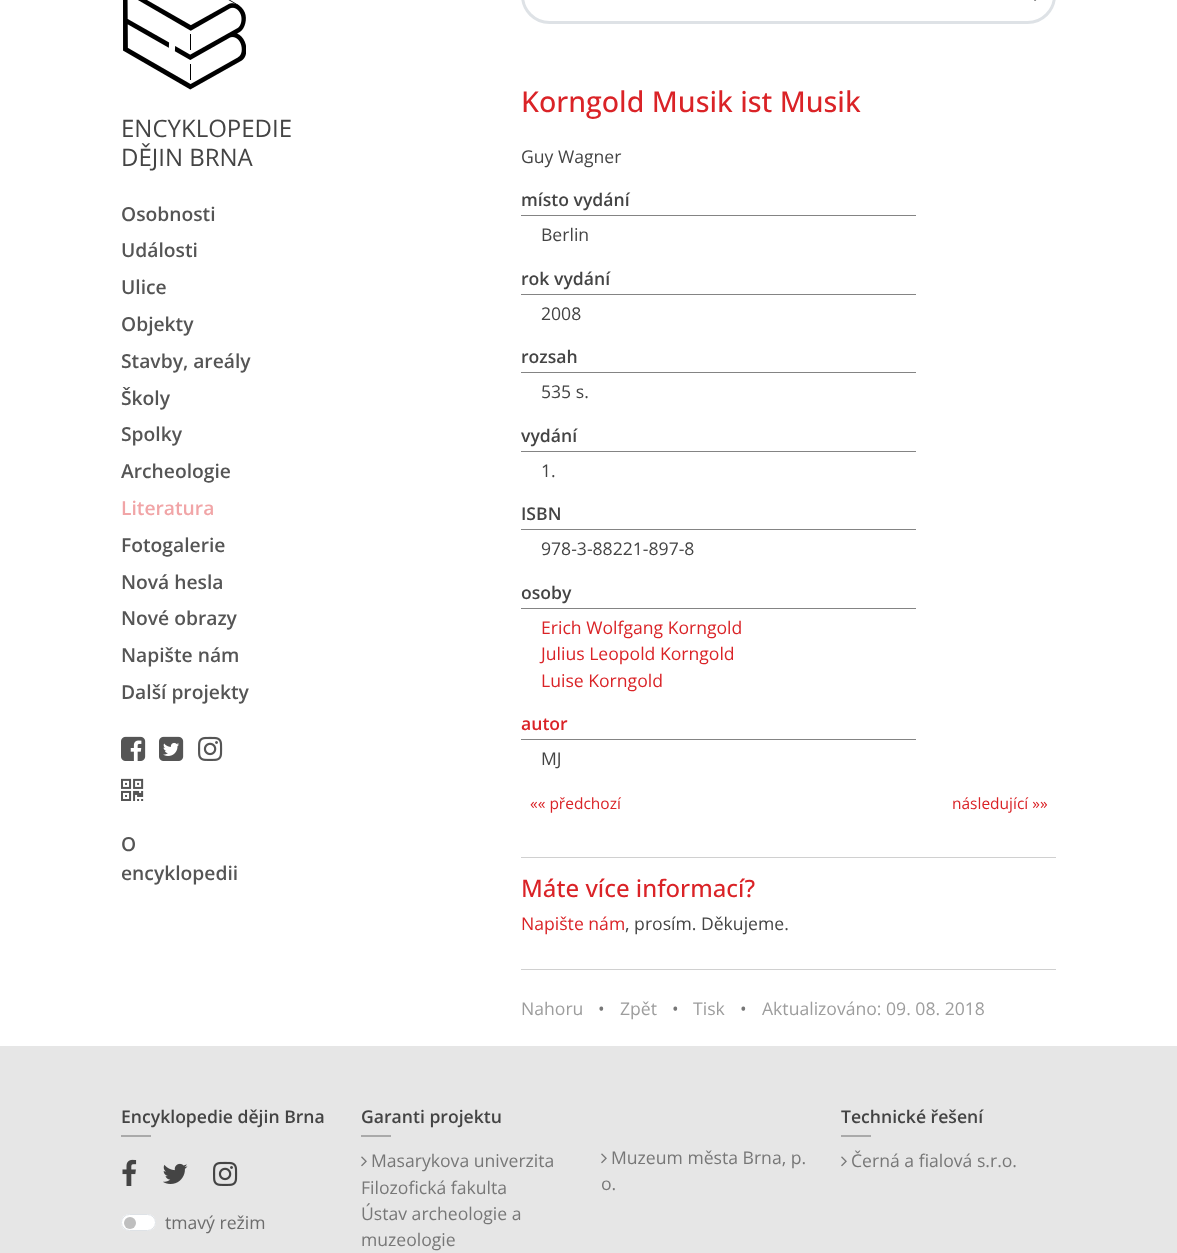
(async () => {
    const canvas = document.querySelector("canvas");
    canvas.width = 1177;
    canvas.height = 1253;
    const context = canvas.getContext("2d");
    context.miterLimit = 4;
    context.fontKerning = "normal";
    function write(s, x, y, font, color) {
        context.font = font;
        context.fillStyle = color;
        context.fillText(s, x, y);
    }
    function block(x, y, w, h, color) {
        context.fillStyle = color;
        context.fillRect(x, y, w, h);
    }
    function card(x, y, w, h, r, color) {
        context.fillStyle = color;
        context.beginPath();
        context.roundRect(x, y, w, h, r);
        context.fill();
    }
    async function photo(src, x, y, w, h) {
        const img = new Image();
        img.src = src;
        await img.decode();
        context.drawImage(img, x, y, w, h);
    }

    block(0, 0, 1177, 1253, "rgb(255, 255, 255)");
    await photo("media/1.png", 123, 0, 123, 90);
    write("ENCYKLOPEDIE", 121, 137, "24px Open Sans", "rgb(68, 68, 68)");
    write("DĚJIN BRNA", 121, 166, "24px Open Sans", "rgb(68, 68, 68)");
    write("Osobnosti", 121, 221, "600 19.25px Open Sans", "rgb(85, 85, 85)");
    write("Události", 121, 257, "600 19.25px Open Sans", "rgb(85, 85, 85)");
    write("Ulice", 121, 294, "600 19.25px Open Sans", "rgb(85, 85, 85)");
    write("Objekty", 121, 331, "600 19.25px Open Sans", "rgb(85, 85, 85)");
    write("Stavby, areály", 121, 368, "600 19.25px Open Sans", "rgb(85, 85, 85)");
    write("Školy", 121, 405, "600 19.25px Open Sans", "rgb(85, 85, 85)");
    write("Spolky", 121, 441, "600 19.25px Open Sans", "rgb(85, 85, 85)");
    write("Archeologie", 121, 478, "600 19.25px Open Sans", "rgb(85, 85, 85)");
    write("Literatura", 121, 515, "600 19.25px Open Sans", "rgb(241, 165, 167)");
    write("Fotogalerie", 121, 552, "600 19.25px Open Sans", "rgb(85, 85, 85)");
    write("Nová hesla", 121, 589, "600 19.25px Open Sans", "rgb(85, 85, 85)");
    write("Nové obrazy", 121, 625, "600 19.25px Open Sans", "rgb(85, 85, 85)");
    write("Napište nám", 121, 662, "600 19.25px Open Sans", "rgb(85, 85, 85)");
    write("Další projekty", 121, 699, "600 19.25px Open Sans", "rgb(85, 85, 85)");
    await photo("media/2.png", 121, 736, 25, 25);
    await photo("media/3.png", 159, 736, 25, 25);
    await photo("media/4.png", 198, 736, 25, 25);
    await photo("media/5.png", 121, 778, 23, 23);
    write("O", 121, 851, "600 19.25px Open Sans", "rgb(85, 85, 85)");
    write("encyklopedii", 121, 880, "600 19.25px Open Sans", "rgb(85, 85, 85)");
    context.beginPath();
    context.roundRect(522.5, -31.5, 532, 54, 28.5);
    context.strokeStyle = "rgb(222, 226, 230)";
    context.lineWidth = 3;
    context.stroke();
    await photo("media/6.png", 1034, 0, 3, 1);
    write("Korngold Musik ist Musik", 521, 112, "500 28.6px Open Sans", "rgb(218, 35, 39)");
    write("Guy Wagner", 521, 163, "17.6px Open Sans", "rgb(68, 68, 68)");
    block(521, 215, 395, 1, "rgb(132, 132, 132)");
    write("místo vydání", 521, 206, "600 17.6px Open Sans", "rgb(68, 68, 68)");
    write("Berlin", 541, 241, "17.6px Open Sans", "rgb(68, 68, 68)");
    block(521, 294, 395, 1, "rgb(132, 132, 132)");
    write("rok vydání", 521, 285, "600 17.6px Open Sans", "rgb(68, 68, 68)");
    write("2008", 541, 320, "17.6px Open Sans", "rgb(68, 68, 68)");
    block(521, 372, 395, 1, "rgb(132, 132, 132)");
    write("rozsah", 521, 363, "600 17.6px Open Sans", "rgb(68, 68, 68)");
    write("535 s.", 541, 398, "17.6px Open Sans", "rgb(68, 68, 68)");
    block(521, 451, 395, 1, "rgb(132, 132, 132)");
    write("vydání", 521, 442, "600 17.6px Open Sans", "rgb(68, 68, 68)");
    write("1.", 541, 477, "17.6px Open Sans", "rgb(68, 68, 68)");
    block(521, 529, 395, 1, "rgb(132, 132, 132)");
    write("ISBN", 521, 520, "600 17.6px Open Sans", "rgb(68, 68, 68)");
    write("978-3-88221-897-8", 541, 555, "17.6px Open Sans", "rgb(68, 68, 68)");
    block(521, 608, 395, 1, "rgb(132, 132, 132)");
    write("osoby", 521, 599, "600 17.6px Open Sans", "rgb(68, 68, 68)");
    write("Erich Wolfgang Korngold", 541, 634, "17.6px Open Sans", "rgb(218, 35, 39)");
    write("Julius Leopold Korngold", 541, 660, "17.6px Open Sans", "rgb(218, 35, 39)");
    write("Luise Korngold", 541, 687, "17.6px Open Sans", "rgb(218, 35, 39)");
    block(521, 739, 395, 1, "rgb(132, 132, 132)");
    write("autor", 521, 730, "600 17.6px Open Sans", "rgb(218, 35, 39)");
    write("MJ", 541, 765, "17.6px Open Sans", "rgb(68, 68, 68)");
    write("«« předchozí", 530, 809, "15.5px Open Sans", "rgb(218, 35, 39)");
    write("následující »»", 952, 809, "15.5px Open Sans", "rgb(218, 35, 39)");
    block(521, 857, 535, 1, "rgb(208, 208, 208)");
    write("Máte více informací?", 521, 897, "500 24px Open Sans", "rgb(218, 35, 39)");
    write("Napište nám", 521, 930, "17.6px Open Sans", "rgb(218, 35, 39)");
    write(", prosím. Děkujeme.", 625, 930, "17.6px Open Sans", "rgb(68, 68, 68)");
    block(521, 969, 535, 1, "rgb(208, 208, 208)");
    write("Nahoru", 521, 1015, "17.6px Open Sans", "rgb(157, 157, 157)");
    write("•", 598, 1015, "17.6px Open Sans", "rgb(119, 119, 119)");
    write("Zpět", 620, 1015, "17.6px Open Sans", "rgb(157, 157, 157)");
    write("•", 672, 1015, "17.6px Open Sans", "rgb(119, 119, 119)");
    write("Tisk", 693, 1015, "17.6px Open Sans", "rgb(157, 157, 157)");
    write("•", 740, 1015, "17.6px Open Sans", "rgb(119, 119, 119)");
    write("Aktualizováno: 09. 08. 2018", 762, 1015, "17.6px Open Sans", "rgb(157, 157, 157)");
    block(0, 1046, 1177, 207, "rgb(230, 230, 230)");
    write("Encyklopedie dějin Brna", 121, 1123, "600 17.6px Open Sans", "rgb(68, 68, 68)");
    block(121, 1135, 30, 2, "rgb(170, 170, 170)");
    await photo("media/7.png", 122, 1159, 15, 27);
    await photo("media/8.png", 163, 1163, 25, 21);
    await photo("media/9.png", 213, 1161, 25, 25);
    card(121, 1214, 35, 17, 8.5, "rgb(255, 255, 255)");
    context.fillStyle = "rgb(191, 191, 191)";
    context.beginPath();
    context.arc(130, 1223, 6, 0, Math.PI * 2);
    context.fill();
    context.beginPath();
    context.roundRect(121.5, 1214.5, 34, 16, 8);
    context.lineWidth = 1;
    context.stroke();
    write("tmavý režim", 165, 1229, "17.6px Open Sans", "rgb(109, 109, 109)");
    write("Garanti projektu", 361, 1123, "600 17.6px Open Sans", "rgb(68, 68, 68)");
    block(361, 1135, 30, 2, "rgb(170, 170, 170)");
    await photo("media/10.png", 361, 1156, 6, 11);
    write("Masarykova univerzita", 371, 1167, "17.6px Open Sans", "rgb(119, 119, 119)");
    write("Filozofická fakulta", 361, 1194, "17.6px Open Sans", "rgb(119, 119, 119)");
    write("Ústav archeologie a", 361, 1220, "17.6px Open Sans", "rgb(119, 119, 119)");
    write("muzeologie", 361, 1246, "17.6px Open Sans", "rgb(119, 119, 119)");
    await photo("media/10.png", 601, 1153, 6, 11);
    write("Muzeum města Brna, p.", 611, 1164, "17.6px Open Sans", "rgb(119, 119, 119)");
    write("o.", 601, 1190, "17.6px Open Sans", "rgb(119, 119, 119)");
    write("Technické řešení", 841, 1123, "600 17.6px Open Sans", "rgb(68, 68, 68)");
    block(841, 1135, 30, 2, "rgb(170, 170, 170)");
    await photo("media/10.png", 841, 1156, 6, 11);
    write("Černá a fialová s.r.o.", 851, 1167, "17.6px Open Sans", "rgb(119, 119, 119)");
})();
